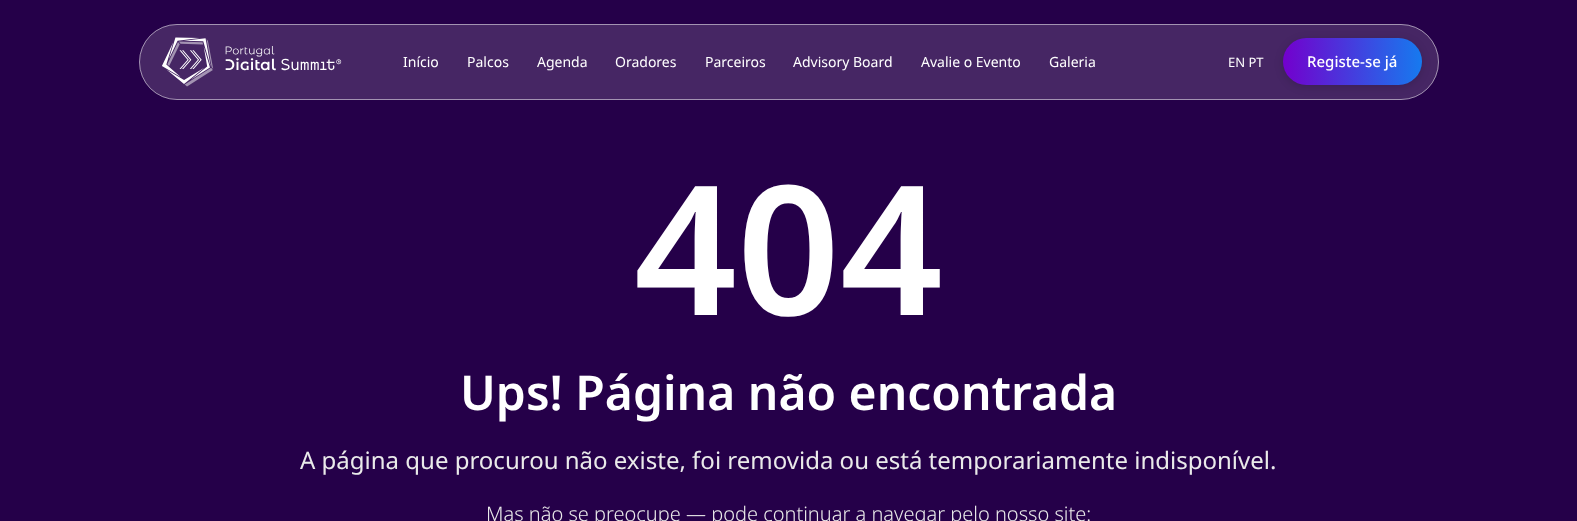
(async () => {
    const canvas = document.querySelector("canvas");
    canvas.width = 1577;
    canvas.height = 521;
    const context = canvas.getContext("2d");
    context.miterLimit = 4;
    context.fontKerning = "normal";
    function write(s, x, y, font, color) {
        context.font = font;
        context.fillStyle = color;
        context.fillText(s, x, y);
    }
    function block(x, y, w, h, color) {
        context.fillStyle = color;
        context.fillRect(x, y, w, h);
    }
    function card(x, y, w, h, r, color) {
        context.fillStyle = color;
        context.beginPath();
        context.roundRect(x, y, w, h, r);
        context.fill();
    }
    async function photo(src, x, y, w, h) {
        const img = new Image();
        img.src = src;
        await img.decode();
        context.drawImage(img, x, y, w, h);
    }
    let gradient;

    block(0, 0, 1577, 521, "rgb(37, 0, 73)");
    card(139, 24, 1300, 76, 38, "rgb(70, 38, 100)");
    context.beginPath();
    context.roundRect(139.5, 24.5, 1299, 75, 37.5);
    context.strokeStyle = "rgba(255, 255, 255, 0.5)";
    context.stroke();
    await photo("media/1.png", 162, 37, 180, 50);
    write("Início", 403, 67, "14px Noto Sans", "rgb(255, 255, 255)");
    write("Palcos", 467, 67, "14px Noto Sans", "rgb(255, 255, 255)");
    write("Agenda", 537, 67, "14px Noto Sans", "rgb(255, 255, 255)");
    write("Oradores", 615, 67, "14px Noto Sans", "rgb(255, 255, 255)");
    write("Parceiros", 705, 67, "14px Noto Sans", "rgb(255, 255, 255)");
    write("Advisory Board", 793, 67, "14px Noto Sans", "rgb(255, 255, 255)");
    write("Avalie o Evento", 921, 67, "14px Noto Sans", "rgb(255, 255, 255)");
    write("Galeria", 1049, 67, "14px Noto Sans", "rgb(255, 255, 255)");
    write("EN PT", 1228, 67, "13px Noto Sans", "rgb(255, 255, 255)");
    context.fillStyle = "rgba(0, 0, 0, 0.15)";
    context.filter = "blur(4px)";
    context.beginPath();
    context.roundRect(1283, 40, 139, 47, 23.5);
    context.fill();
    context.filter = "none";
    gradient = context.createLinearGradient(1422, 61, 1283, 62);
    gradient.addColorStop(0, "rgb(22, 122, 239)");
    gradient.addColorStop(1, "rgb(115, 0, 205)");
    context.fillStyle = gradient;
    context.beginPath();
    context.roundRect(1283, 38, 139, 47, 23.5);
    context.fill();
    write("Registe-se já", 1307, 67, "500 15px Noto Sans", "rgb(255, 255, 255)");
    write("404", 634, 315, "600 180px Noto Sans", "rgb(255, 255, 255)");
    write("Ups! Página não encontrada", 460, 410, "600 48px Noto Sans", "rgb(255, 255, 255)");
    write("A página que procurou não existe, foi removida ou está temporariamente indisponível.", 300, 469, "24px Noto Sans", "rgb(234, 234, 234)");
    write("Mas não se preocupe — pode continuar a navegar pelo nosso site:", 486, 521, "300 20px Noto Sans", "rgb(234, 234, 234)");
})();
